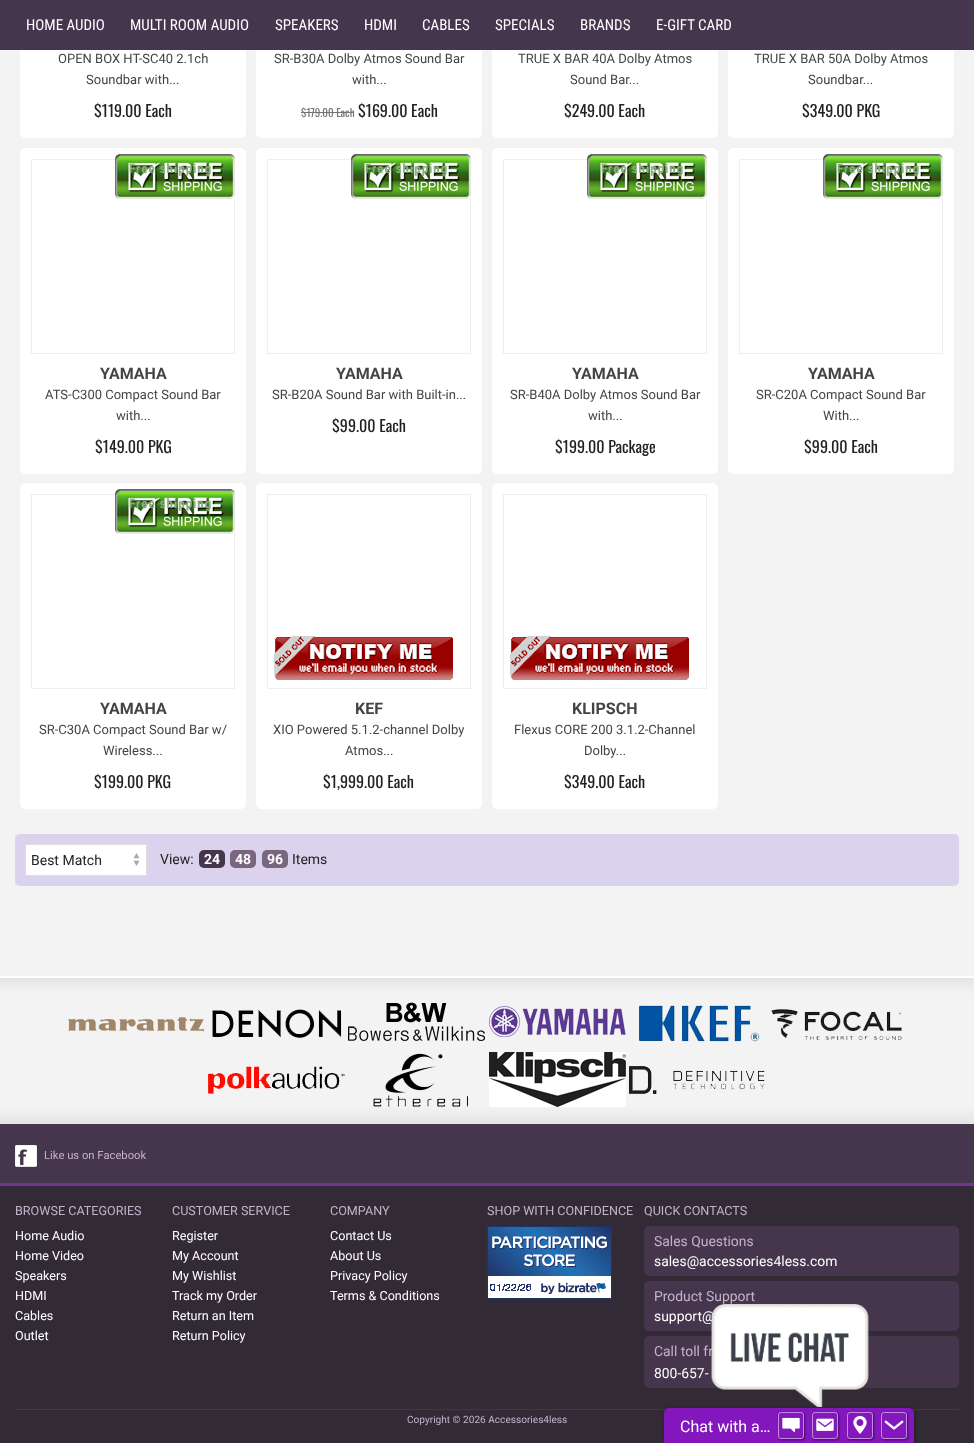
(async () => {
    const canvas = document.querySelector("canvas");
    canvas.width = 974;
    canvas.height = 1443;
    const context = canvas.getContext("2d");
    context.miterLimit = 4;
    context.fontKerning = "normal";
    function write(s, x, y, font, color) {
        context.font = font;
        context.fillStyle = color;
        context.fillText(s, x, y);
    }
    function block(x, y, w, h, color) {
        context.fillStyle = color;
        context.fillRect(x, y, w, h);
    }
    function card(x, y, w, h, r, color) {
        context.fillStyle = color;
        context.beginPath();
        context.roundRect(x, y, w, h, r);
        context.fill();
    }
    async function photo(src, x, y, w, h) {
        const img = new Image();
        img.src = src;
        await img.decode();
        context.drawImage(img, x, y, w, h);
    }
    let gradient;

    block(0, 0, 974, 1443, "rgb(243, 243, 243)");
    context.fillStyle = "rgb(255, 255, 255)";
    context.beginPath();
    context.roundRect(20.5, -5.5, 225, 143, 4.5);
    context.fill();
    context.strokeStyle = "rgb(255, 255, 255)";
    context.stroke();
    context.beginPath();
    context.roundRect(256.5, -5.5, 225, 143, 4.5);
    context.fill();
    context.stroke();
    context.beginPath();
    context.roundRect(492.5, -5.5, 225, 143, 4.5);
    context.fill();
    context.stroke();
    context.beginPath();
    context.roundRect(728.5, -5.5, 225, 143, 4.5);
    context.fill();
    context.stroke();
    block(0, 0, 974, 50, "rgb(70, 54, 77)");
    write("HOME AUDIO", 26, 30, "15px Roboto Condensed", "rgb(255, 255, 255)");
    write("MULTI ROOM AUDIO", 130, 30, "15px Roboto Condensed", "rgb(255, 255, 255)");
    write("SPEAKERS", 275, 30, "15px Roboto Condensed", "rgb(255, 255, 255)");
    write("HDMI", 364, 30, "15px Roboto Condensed", "rgb(255, 255, 255)");
    write("CABLES", 422, 30, "15px Roboto Condensed", "rgb(255, 255, 255)");
    write("SPECIALS", 495, 30, "15px Roboto Condensed", "rgb(255, 255, 255)");
    write("BRANDS", 580, 30, "15px Roboto Condensed", "rgb(255, 255, 255)");
    write("E-GIFT CARD", 656, 30, "15px Roboto Condensed", "rgb(255, 255, 255)");
    write("OPEN BOX HT-SC40 2.1ch", 58, 63, "13px Roboto", "rgb(68, 68, 68)");
    write("Soundbar with...", 86, 84, "13px Roboto", "rgb(68, 68, 68)");
    write("$119.00 Each", 94, 117, "16px Oswald", "rgb(34, 34, 34)");
    write("SR-B30A Dolby Atmos Sound Bar", 274, 63, "13px Roboto", "rgb(68, 68, 68)");
    write("with...", 352, 84, "13px Roboto", "rgb(68, 68, 68)");
    write("$179.00 Each", 301, 117, "11px Oswald", "rgb(117, 117, 117)");
    block(301, 112, 53, 1, "rgb(117, 117, 117)");
    write("$169.00 Each", 358, 117, "16px Oswald", "rgb(34, 34, 34)");
    write("TRUE X BAR 40A Dolby Atmos", 518, 63, "13px Roboto", "rgb(68, 68, 68)");
    write("Sound Bar...", 570, 84, "13px Roboto", "rgb(68, 68, 68)");
    write("$249.00 Each", 564, 117, "16px Oswald", "rgb(34, 34, 34)");
    write("TRUE X BAR 50A Dolby Atmos", 754, 63, "13px Roboto", "rgb(68, 68, 68)");
    write("Soundbar...", 808, 84, "13px Roboto", "rgb(68, 68, 68)");
    write("$349.00 PKG", 802, 117, "16px Oswald", "rgb(34, 34, 34)");
    context.fillStyle = "rgb(255, 255, 255)";
    context.beginPath();
    context.roundRect(20.5, 148.5, 225, 325, 4.5);
    context.fill();
    context.stroke();
    context.strokeStyle = "rgb(238, 238, 238)";
    context.strokeRect(31.5, 159.5, 203, 194);
    await photo("media/1.png", 115, 154, 120, 45);
    context.letterSpacing = "1px";
    write("Free shipping", 129, 173, "bold 13px Roboto Condensed", "rgb(143, 171, 132)");
    context.letterSpacing = "0px";
    write("YAMAHA", 100, 379, "bold 16px Roboto", "rgb(68, 68, 68)");
    write("ATS-C300 Compact Sound Bar", 45, 399, "13px Roboto", "rgb(68, 68, 68)");
    write("with...", 116, 420, "13px Roboto", "rgb(68, 68, 68)");
    write("$149.00 PKG", 95, 453, "16px Oswald", "rgb(34, 34, 34)");
    context.fillStyle = "rgb(255, 255, 255)";
    context.beginPath();
    context.roundRect(256.5, 148.5, 225, 325, 4.5);
    context.fill();
    context.strokeStyle = "rgb(255, 255, 255)";
    context.stroke();
    context.strokeStyle = "rgb(238, 238, 238)";
    context.strokeRect(267.5, 159.5, 203, 194);
    await photo("media/1.png", 351, 154, 120, 45);
    context.letterSpacing = "1px";
    write("Free shipping", 365, 173, "bold 13px Roboto Condensed", "rgb(143, 171, 132)");
    context.letterSpacing = "0px";
    write("YAMAHA", 336, 379, "bold 16px Roboto", "rgb(68, 68, 68)");
    write("SR-B20A Sound Bar with Built-in...", 272, 399, "13px Roboto", "rgb(68, 68, 68)");
    write("$99.00 Each", 332, 432, "16px Oswald", "rgb(34, 34, 34)");
    context.fillStyle = "rgb(255, 255, 255)";
    context.beginPath();
    context.roundRect(492.5, 148.5, 225, 325, 4.5);
    context.fill();
    context.strokeStyle = "rgb(255, 255, 255)";
    context.stroke();
    context.strokeStyle = "rgb(238, 238, 238)";
    context.strokeRect(503.5, 159.5, 203, 194);
    await photo("media/1.png", 587, 154, 120, 45);
    context.letterSpacing = "1px";
    write("Free shipping", 601, 173, "bold 13px Roboto Condensed", "rgb(143, 171, 132)");
    context.letterSpacing = "0px";
    write("YAMAHA", 572, 379, "bold 16px Roboto", "rgb(68, 68, 68)");
    write("SR-B40A Dolby Atmos Sound Bar", 510, 399, "13px Roboto", "rgb(68, 68, 68)");
    write("with...", 588, 420, "13px Roboto", "rgb(68, 68, 68)");
    write("$199.00 Package", 555, 453, "16px Oswald", "rgb(34, 34, 34)");
    context.fillStyle = "rgb(255, 255, 255)";
    context.beginPath();
    context.roundRect(728.5, 148.5, 225, 325, 4.5);
    context.fill();
    context.strokeStyle = "rgb(255, 255, 255)";
    context.stroke();
    context.strokeStyle = "rgb(238, 238, 238)";
    context.strokeRect(739.5, 159.5, 203, 194);
    await photo("media/1.png", 823, 154, 120, 45);
    context.letterSpacing = "1px";
    write("Free shipping", 837, 173, "bold 13px Roboto Condensed", "rgb(143, 171, 132)");
    context.letterSpacing = "0px";
    write("YAMAHA", 808, 379, "bold 16px Roboto", "rgb(68, 68, 68)");
    write("SR-C20A Compact Sound Bar", 756, 399, "13px Roboto", "rgb(68, 68, 68)");
    write("With...", 823, 420, "13px Roboto", "rgb(68, 68, 68)");
    write("$99.00 Each", 804, 453, "16px Oswald", "rgb(34, 34, 34)");
    context.fillStyle = "rgb(255, 255, 255)";
    context.beginPath();
    context.roundRect(20.5, 483.5, 225, 325, 4.5);
    context.fill();
    context.strokeStyle = "rgb(255, 255, 255)";
    context.stroke();
    context.strokeStyle = "rgb(238, 238, 238)";
    context.strokeRect(31.5, 494.5, 203, 194);
    await photo("media/1.png", 115, 489, 120, 45);
    context.letterSpacing = "1px";
    write("Free shipping", 129, 508, "bold 13px Roboto Condensed", "rgb(143, 171, 132)");
    context.letterSpacing = "0px";
    write("YAMAHA", 100, 714, "bold 16px Roboto", "rgb(68, 68, 68)");
    write("SR-C30A Compact Sound Bar w/", 39, 734, "13px Roboto", "rgb(68, 68, 68)");
    write("Wireless...", 103, 755, "13px Roboto", "rgb(68, 68, 68)");
    write("$199.00 PKG", 94, 788, "16px Oswald", "rgb(34, 34, 34)");
    context.fillStyle = "rgb(255, 255, 255)";
    context.beginPath();
    context.roundRect(256.5, 483.5, 225, 325, 4.5);
    context.fill();
    context.strokeStyle = "rgb(255, 255, 255)";
    context.stroke();
    context.strokeStyle = "rgb(238, 238, 238)";
    context.strokeRect(267.5, 494.5, 203, 194);
    await photo("media/2.png", 274, 636, 179, 44);
    write("KEF", 355, 714, "bold 16px Roboto", "rgb(68, 68, 68)");
    write("XIO Powered 5.1.2-channel Dolby", 273, 734, "13px Roboto", "rgb(68, 68, 68)");
    write("Atmos...", 345, 755, "13px Roboto", "rgb(68, 68, 68)");
    write("$1,999.00 Each", 323, 788, "16px Oswald", "rgb(34, 34, 34)");
    context.fillStyle = "rgb(255, 255, 255)";
    context.beginPath();
    context.roundRect(492.5, 483.5, 225, 325, 4.5);
    context.fill();
    context.strokeStyle = "rgb(255, 255, 255)";
    context.stroke();
    context.strokeStyle = "rgb(238, 238, 238)";
    context.strokeRect(503.5, 494.5, 203, 194);
    await photo("media/2.png", 510, 636, 179, 44);
    write("KLIPSCH", 572, 714, "bold 16px Roboto", "rgb(68, 68, 68)");
    write("Flexus CORE 200 3.1.2-Channel", 514, 734, "13px Roboto", "rgb(68, 68, 68)");
    write("Dolby...", 584, 755, "13px Roboto", "rgb(68, 68, 68)");
    write("$349.00 Each", 564, 788, "16px Oswald", "rgb(34, 34, 34)");
    card(15, 834, 944, 52, 5, "rgb(219, 211, 237)");
    block(26, 845, 120, 30, "rgb(255, 255, 255)");
    await photo("media/3.png", 133, 853, 7, 13);
    context.strokeStyle = "rgb(221, 221, 221)";
    context.strokeRect(25.5, 844.5, 121, 31);
    write("Best Match", 31, 865, "14px Roboto", "rgb(34, 34, 34)");
    write("View:", 160, 864, "14px Roboto", "rgb(34, 34, 34)");
    card(199, 850, 26, 18, 5, "rgb(70, 54, 77)");
    write("24", 204, 864, "bold 14px Roboto", "rgb(255, 255, 255)");
    card(230, 850, 26, 18, 5, "rgb(121, 103, 128)");
    write("48", 235, 864, "bold 14px Roboto", "rgb(255, 255, 255)");
    card(262, 850, 26, 18, 5, "rgb(121, 103, 128)");
    write("96", 267, 864, "bold 14px Roboto", "rgb(255, 255, 255)");
    write("Items", 292, 864, "14px Roboto", "rgb(34, 34, 34)");
    gradient = context.createLinearGradient(487, 978, 487, 1124);
    gradient.addColorStop(0, "rgb(229, 229, 229)");
    gradient.addColorStop(0.11, "rgb(243, 243, 243)");
    gradient.addColorStop(0.88, "rgb(243, 243, 243)");
    gradient.addColorStop(0.99, "rgb(229, 229, 229)");
    context.fillStyle = gradient;
    context.fillRect(0, 978, 974, 146);
    block(0, 976, 974, 2, "rgb(255, 255, 255)");
    await photo("media/4.png", 68, 1017, 136, 15);
    await photo("media/5.png", 212, 1009, 130, 29);
    await photo("media/6.png", 348, 1002, 137, 39);
    await photo("media/7.png", 489, 1006, 137, 31);
    await photo("media/8.png", 639, 1005, 121, 37);
    await photo("media/9.png", 771, 1009, 131, 31);
    await photo("media/10.png", 208, 1066, 137, 28);
    await photo("media/11.png", 373, 1053, 95, 54);
    await photo("media/12.png", 489, 1052, 137, 55);
    await photo("media/13.png", 629, 1066, 137, 28);
    block(0, 1124, 974, 59, "rgb(70, 54, 77)");
    await photo("media/14.png", 15, 1145, 22, 22);
    write("Like us on Facebook", 44, 1159, "11.25px Roboto", "rgb(195, 178, 202)");
    block(0, 1186, 974, 257, "rgb(50, 43, 53)");
    block(0, 1183, 974, 3, "rgb(115, 51, 147)");
    write("BROWSE CATEGORIES", 15, 1215, "12.6px Roboto", "rgb(195, 178, 202)");
    write("Home Audio", 15, 1240, "12.6px Roboto", "rgb(255, 255, 255)");
    write("Home Video", 15, 1260, "12.6px Roboto", "rgb(255, 255, 255)");
    write("Speakers", 15, 1280, "12.6px Roboto", "rgb(255, 255, 255)");
    write("HDMI", 15, 1300, "12.6px Roboto", "rgb(255, 255, 255)");
    write("Cables", 15, 1320, "12.6px Roboto", "rgb(255, 255, 255)");
    write("Outlet", 15, 1340, "12.6px Roboto", "rgb(255, 255, 255)");
    write("CUSTOMER SERVICE", 172, 1215, "12.6px Roboto", "rgb(195, 178, 202)");
    write("Register", 172, 1240, "12.6px Roboto", "rgb(255, 255, 255)");
    write("My Account", 172, 1260, "12.6px Roboto", "rgb(255, 255, 255)");
    write("My Wishlist", 172, 1280, "12.6px Roboto", "rgb(255, 255, 255)");
    write("Track my Order", 172, 1300, "12.6px Roboto", "rgb(255, 255, 255)");
    write("Return an Item", 172, 1320, "12.6px Roboto", "rgb(255, 255, 255)");
    write("Return Policy", 172, 1340, "12.6px Roboto", "rgb(255, 255, 255)");
    write("COMPANY", 330, 1215, "12.6px Roboto", "rgb(195, 178, 202)");
    write("Contact Us", 330, 1240, "12.6px Roboto", "rgb(255, 255, 255)");
    write("About Us", 330, 1260, "12.6px Roboto", "rgb(255, 255, 255)");
    write("Privacy Policy", 330, 1280, "12.6px Roboto", "rgb(255, 255, 255)");
    write("Terms & Conditions", 330, 1300, "12.6px Roboto", "rgb(255, 255, 255)");
    write("SHOP WITH CONFIDENCE", 487, 1215, "12.6px Roboto", "rgb(195, 178, 202)");
    await photo("media/15.png", 487, 1226, 125, 73);
    write("QUICK CONTACTS", 644, 1215, "12.6px Roboto", "rgb(195, 178, 202)");
    card(644, 1226, 315, 50, 5, "rgb(70, 54, 77)");
    write("Sales Questions", 654, 1246, "13.9px Roboto", "rgb(195, 178, 202)");
    write("sales@accessories4less.com", 654, 1266, "13.9px Roboto", "rgb(255, 255, 255)");
    card(644, 1281, 315, 50, 5, "rgb(70, 54, 77)");
    write("Product Support", 654, 1301, "13.9px Roboto", "rgb(195, 178, 202)");
    write("support@", 654, 1321, "13.9px Roboto", "rgb(255, 255, 255)");
    card(644, 1336, 315, 52, 5, "rgb(70, 54, 77)");
    write("Call toll fr", 654, 1356, "13.9px Roboto", "rgb(195, 178, 202)");
    write("800-657-", 654, 1378, "13.9px Roboto", "rgb(255, 255, 255)");
    block(15, 1409, 944, 1, "rgb(70, 54, 77)");
    write("Copyright © 2026 Accessories4less", 407, 1423, "10.1px Roboto", "rgb(195, 178, 202)");
    context.fillStyle = "rgba(0, 0, 0, 0.4)";
    context.filter = "blur(2px)";
    context.beginPath();
    context.roundRect(665, 1409, 250, 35, 5);
    context.fill();
    context.filter = "none";
    await photo("media/16.png", 711, 1304, 158, 103);
    context.fillStyle = "rgb(131, 23, 189)";
    context.beginPath();
    context.roundRect(664, 1408, 250, 35, [5, 5, 0, 0]);
    context.fill();
    write("Chat with a…", 680, 1432, "16px Roboto", "rgb(255, 255, 255)");
    context.save();
    context.beginPath();
    context.moveTo(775, 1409);
    context.lineTo(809, 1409);
    context.lineTo(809, 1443);
    context.lineTo(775, 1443);
    context.closePath();
    context.moveTo(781, 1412);
    context.lineTo(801, 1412);
    context.bezierCurveTo(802.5, 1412, 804, 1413.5, 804, 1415);
    context.lineTo(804, 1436);
    context.bezierCurveTo(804, 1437.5, 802.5, 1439, 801, 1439);
    context.lineTo(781, 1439);
    context.bezierCurveTo(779.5, 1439, 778, 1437.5, 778, 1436);
    context.lineTo(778, 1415);
    context.bezierCurveTo(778, 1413.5, 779.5, 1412, 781, 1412);
    context.closePath();
    context.clip("evenodd");
    context.fillStyle = "rgba(0, 0, 0, 0.5)";
    context.filter = "blur(1px)";
    context.beginPath();
    context.roundRect(779, 1413, 26, 27, 3);
    context.fill();
    context.filter = "none";
    context.restore();
    context.beginPath();
    context.roundRect(778.5, 1412.5, 25, 26, 2.5);
    context.strokeStyle = "rgba(255, 255, 255, 0.5)";
    context.stroke();
    await photo("media/17.png", 782, 1417, 18, 15);
    context.save();
    context.beginPath();
    context.moveTo(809, 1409);
    context.lineTo(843, 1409);
    context.lineTo(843, 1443);
    context.lineTo(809, 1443);
    context.closePath();
    context.moveTo(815, 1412);
    context.lineTo(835, 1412);
    context.bezierCurveTo(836.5, 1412, 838, 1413.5, 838, 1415);
    context.lineTo(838, 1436);
    context.bezierCurveTo(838, 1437.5, 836.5, 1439, 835, 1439);
    context.lineTo(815, 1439);
    context.bezierCurveTo(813.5, 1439, 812, 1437.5, 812, 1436);
    context.lineTo(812, 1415);
    context.bezierCurveTo(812, 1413.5, 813.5, 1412, 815, 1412);
    context.closePath();
    context.clip("evenodd");
    context.fillStyle = "rgba(0, 0, 0, 0.5)";
    context.filter = "blur(1px)";
    context.beginPath();
    context.roundRect(813, 1413, 26, 27, 3);
    context.fill();
    context.filter = "none";
    context.restore();
    context.beginPath();
    context.roundRect(812.5, 1412.5, 25, 26, 2.5);
    context.stroke();
    await photo("media/18.png", 816, 1418, 18, 13);
    context.save();
    context.beginPath();
    context.moveTo(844, 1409);
    context.lineTo(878, 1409);
    context.lineTo(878, 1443);
    context.lineTo(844, 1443);
    context.closePath();
    context.moveTo(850, 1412);
    context.lineTo(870, 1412);
    context.bezierCurveTo(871.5, 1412, 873, 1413.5, 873, 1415);
    context.lineTo(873, 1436);
    context.bezierCurveTo(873, 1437.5, 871.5, 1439, 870, 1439);
    context.lineTo(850, 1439);
    context.bezierCurveTo(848.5, 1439, 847, 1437.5, 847, 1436);
    context.lineTo(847, 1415);
    context.bezierCurveTo(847, 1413.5, 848.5, 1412, 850, 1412);
    context.closePath();
    context.clip("evenodd");
    context.fillStyle = "rgba(0, 0, 0, 0.5)";
    context.filter = "blur(1px)";
    context.beginPath();
    context.roundRect(848, 1413, 26, 27, 3);
    context.fill();
    context.filter = "none";
    context.restore();
    context.beginPath();
    context.roundRect(847.5, 1412.5, 25, 26, 2.5);
    context.stroke();
    await photo("media/19.png", 853, 1415, 14, 19);
    context.save();
    context.beginPath();
    context.moveTo(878, 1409);
    context.lineTo(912, 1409);
    context.lineTo(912, 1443);
    context.lineTo(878, 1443);
    context.closePath();
    context.moveTo(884, 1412);
    context.lineTo(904, 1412);
    context.bezierCurveTo(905.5, 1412, 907, 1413.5, 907, 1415);
    context.lineTo(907, 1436);
    context.bezierCurveTo(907, 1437.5, 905.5, 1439, 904, 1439);
    context.lineTo(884, 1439);
    context.bezierCurveTo(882.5, 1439, 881, 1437.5, 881, 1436);
    context.lineTo(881, 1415);
    context.bezierCurveTo(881, 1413.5, 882.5, 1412, 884, 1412);
    context.closePath();
    context.clip("evenodd");
    context.fillStyle = "rgba(0, 0, 0, 0.5)";
    context.filter = "blur(1px)";
    context.beginPath();
    context.roundRect(882, 1413, 26, 27, 3);
    context.fill();
    context.filter = "none";
    context.restore();
    context.beginPath();
    context.roundRect(881.5, 1412.5, 25, 26, 2.5);
    context.stroke();
    await photo("media/20.png", 884, 1420, 20, 10);
})();
